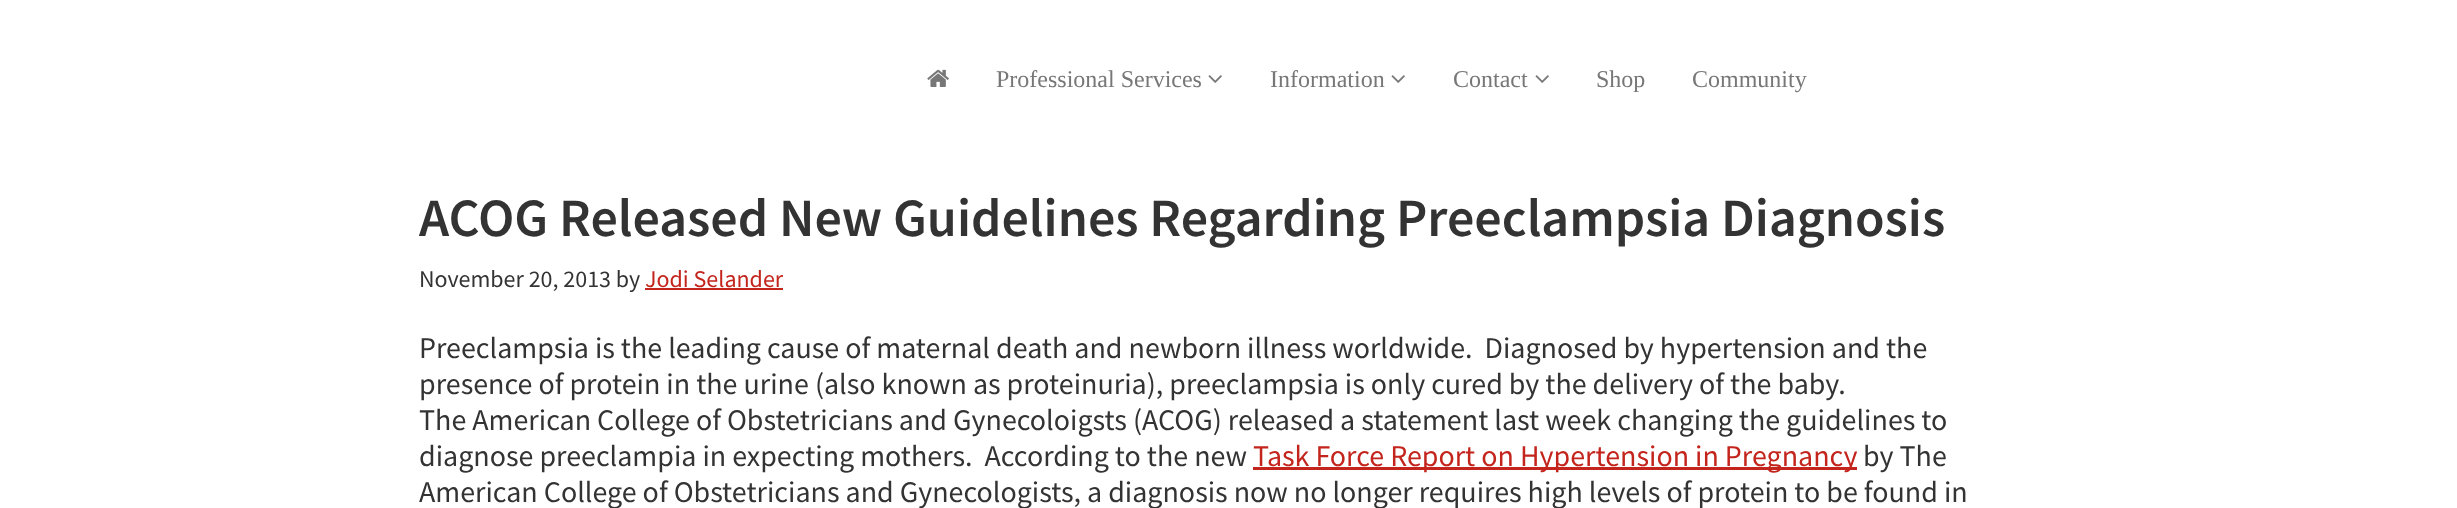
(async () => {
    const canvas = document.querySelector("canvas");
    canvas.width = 2457;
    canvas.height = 508;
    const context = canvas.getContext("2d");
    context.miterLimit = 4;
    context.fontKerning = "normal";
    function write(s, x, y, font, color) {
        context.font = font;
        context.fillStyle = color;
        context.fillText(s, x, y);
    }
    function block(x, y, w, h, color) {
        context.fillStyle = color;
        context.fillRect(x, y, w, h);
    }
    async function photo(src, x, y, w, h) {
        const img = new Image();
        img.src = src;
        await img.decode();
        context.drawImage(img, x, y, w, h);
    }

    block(0, 0, 2457, 508, "rgb(255, 255, 255)");
    await photo("media/1.png", 927, 69, 22, 18);
    write("Professional Services", 996, 87, "24px Liberation Serif", "rgb(119, 119, 119)");
    await photo("media/2.png", 1208, 75, 14, 8);
    write("Information", 1270, 87, "24px Liberation Serif", "rgb(119, 119, 119)");
    await photo("media/2.png", 1391, 75, 14, 8);
    write("Contact", 1453, 87, "24px Liberation Serif", "rgb(119, 119, 119)");
    await photo("media/2.png", 1535, 75, 14, 8);
    write("Shop", 1596, 87, "24px Liberation Serif", "rgb(119, 119, 119)");
    write("Community", 1692, 87, "24px Liberation Serif", "rgb(119, 119, 119)");
    write("ACOG Released New Guidelines Regarding Preeclampsia Diagnosis", 419, 236, "600 54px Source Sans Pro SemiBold", "rgb(51, 51, 51)");
    write("November 20, 2013 by", 419, 287, "24px Source Sans Pro", "rgb(51, 51, 51)");
    write("Jodi Selander", 645, 287, "24px Source Sans Pro", "rgb(195, 37, 29)");
    block(645, 288, 138, 2, "rgb(195, 37, 29)");
    write("Preeclampsia is the leading cause of maternal death and newborn illness worldwide.  Diagnosed by hypertension and the", 419, 358, "30px Source Sans Pro", "rgb(51, 51, 51)");
    write("presence of protein in the urine (also known as proteinuria), preeclampsia is only cured by the delivery of the baby.", 419, 394, "30px Source Sans Pro", "rgb(51, 51, 51)");
    write("The American College of Obstetricians and Gynecoloigsts (ACOG) released a statement last week changing the guidelines to", 419, 430, "30px Source Sans Pro", "rgb(51, 51, 51)");
    write("diagnose preeclampia in expecting mothers.  According to the new", 419, 466, "30px Source Sans Pro", "rgb(51, 51, 51)");
    block(1253, 467, 604, 3, "rgb(195, 37, 29)");
    write("Task Force Report on Hypertension in Pregnancy", 1253, 466, "30px Source Sans Pro", "rgb(195, 37, 29)");
    write("by The", 1863, 466, "30px Source Sans Pro", "rgb(51, 51, 51)");
    write("American College of Obstetricians and Gynecologists, a diagnosis now no longer requires high levels of protein to be found in", 419, 502, "30px Source Sans Pro", "rgb(51, 51, 51)");
})();
